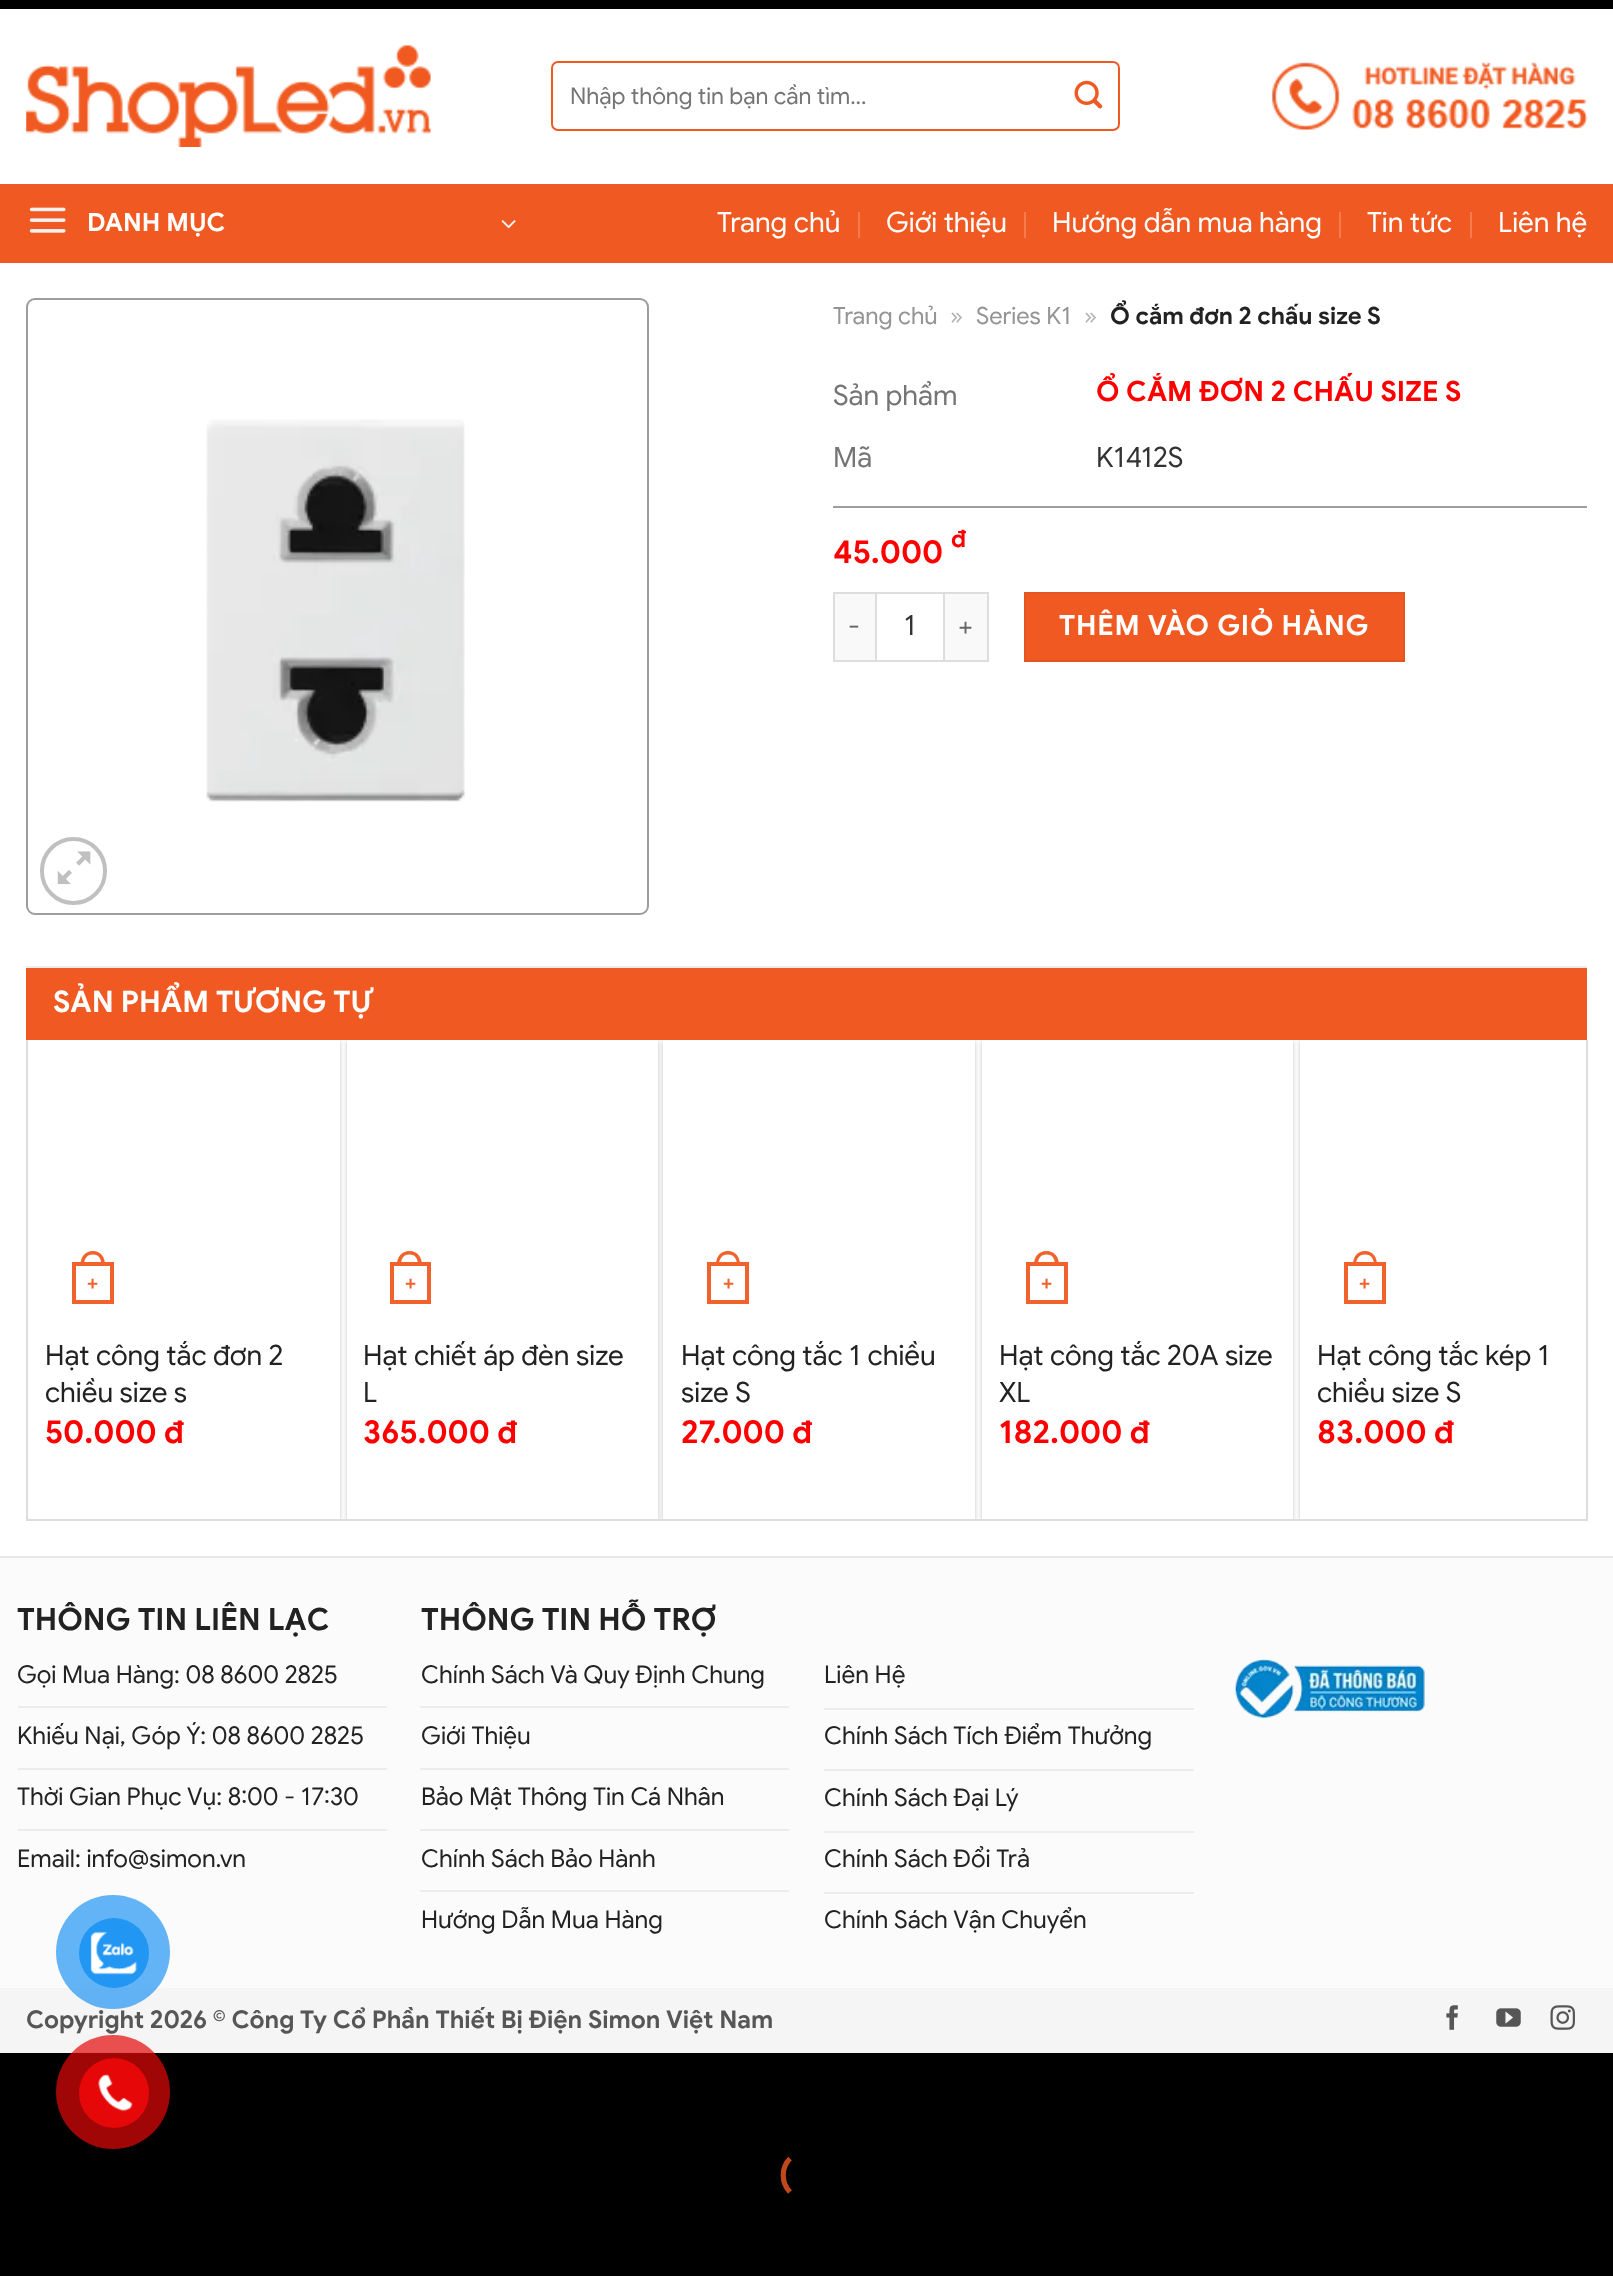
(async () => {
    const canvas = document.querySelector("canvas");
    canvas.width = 1613;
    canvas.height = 2276;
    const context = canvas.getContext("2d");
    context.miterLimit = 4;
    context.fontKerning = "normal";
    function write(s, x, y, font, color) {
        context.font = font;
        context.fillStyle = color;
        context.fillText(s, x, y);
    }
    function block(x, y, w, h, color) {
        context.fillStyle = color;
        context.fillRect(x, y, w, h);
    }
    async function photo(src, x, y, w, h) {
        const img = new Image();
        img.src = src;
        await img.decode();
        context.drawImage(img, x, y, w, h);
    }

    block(0, 0, 1613, 2276, "rgb(0, 0, 0)");
    block(0, 9, 1613, 1547, "rgb(255, 255, 255)");
    await photo("media/1.png", 26, 45, 405, 102);
    context.beginPath();
    context.roundRect(552, 62, 567, 68, 6);
    context.strokeStyle = "rgb(240, 90, 34)";
    context.lineWidth = 2;
    context.stroke();
    write("Nhập thông tin bạn cần tìm...", 570, 104, "23.1px Google Sans", "rgb(117, 117, 117)");
    await photo("media/2.png", 1074, 80, 29, 29);
    await photo("media/3.png", 1271, 62, 317, 68);
    block(0, 184, 1613, 79, "rgb(240, 90, 34)");
    await photo("media/4.png", 29, 207, 37, 26);
    write("DANH MỤC", 87, 231, "bold 25.25px Google Sans", "rgb(255, 255, 255)");
    await photo("media/5.png", 501, 220, 15, 9);
    write("Trang chủ", 717, 232, "28px Google Sans", "rgb(255, 255, 255)");
    block(858, 212, 2, 26, "rgb(243, 123, 78)");
    write("Giới thiệu", 886, 232, "28px Google Sans", "rgb(255, 255, 255)");
    block(1024, 212, 2, 26, "rgb(243, 123, 78)");
    write("Hướng dẫn mua hàng", 1052, 232, "28px Google Sans", "rgb(255, 255, 255)");
    block(1339, 212, 2, 26, "rgb(243, 123, 78)");
    write("Tin tức", 1367, 232, "28px Google Sans", "rgb(255, 255, 255)");
    block(1470, 212, 2, 26, "rgb(243, 123, 78)");
    write("Liên hệ", 1498, 232, "28px Google Sans", "rgb(255, 255, 255)");
    context.beginPath();
    context.roundRect(27, 299, 621, 615, 8);
    context.strokeStyle = "rgb(157, 157, 157)";
    context.stroke();
    await photo("media/6.png", 206, 419, 259, 383);
    context.beginPath();
    context.roundRect(42, 839, 63, 64, 31.5);
    context.strokeStyle = "rgb(192, 192, 192)";
    context.lineWidth = 4;
    context.stroke();
    await photo("media/7.png", 57, 851, 34, 34);
    write("Trang chủ", 833, 324, "23.75px Google Sans", "rgb(148, 148, 148)");
    write("»", 950, 324, "23.75px Google Sans", "rgb(178, 178, 178)");
    write("Series K1", 976, 324, "23.75px Google Sans", "rgb(148, 148, 148)");
    write("»", 1084, 324, "23.75px Google Sans", "rgb(178, 178, 178)");
    write("Ổ cắm đơn 2 chấu size S", 1110, 324, "bold 23.75px Google Sans", "rgb(34, 34, 34)");
    write("Sản phẩm", 833, 405, "28px Google Sans", "rgb(117, 117, 117)");
    write("Ổ CẮM ĐƠN 2 CHẤU SIZE S", 1096, 401, "bold 28px Google Sans", "rgb(255, 0, 0)");
    write("Mã", 833, 467, "28px Google Sans", "rgb(117, 117, 117)");
    write("K1412S", 1096, 467, "28px Google Sans", "rgb(51, 51, 51)");
    block(833, 506, 754, 2, "rgb(157, 157, 157)");
    write("45.000", 833, 563, "bold 31.5px Google Sans", "rgb(255, 0, 0)");
    write("đ", 951, 547, "bold 24px Google Sans", "rgb(255, 0, 0)");
    block(835, 594, 40, 66, "rgb(249, 249, 249)");
    block(833, 592, 42, 2, "rgb(221, 221, 221)");
    block(833, 660, 42, 2, "rgb(221, 221, 221)");
    block(833, 592, 2, 70, "rgb(221, 221, 221)");
    context.letterSpacing = "1px";
    write("-", 848, 635, "27px Google Sans", "rgb(102, 102, 102)");
    context.strokeStyle = "rgb(221, 221, 221)";
    context.lineWidth = 2;
    context.strokeRect(876, 593, 68, 68);
    context.letterSpacing = "0px";
    write("1", 904, 635, "28px Google Sans", "rgb(51, 51, 51)");
    block(945, 594, 42, 66, "rgb(249, 249, 249)");
    block(945, 592, 44, 2, "rgb(221, 221, 221)");
    block(987, 592, 2, 70, "rgb(221, 221, 221)");
    block(945, 660, 44, 2, "rgb(221, 221, 221)");
    context.letterSpacing = "1px";
    write("+", 958, 635, "27px Google Sans", "rgb(102, 102, 102)");
    context.fillStyle = "rgb(240, 90, 34)";
    context.beginPath();
    context.rect(1025, 593, 379, 68);
    context.fill();
    context.strokeStyle = "rgb(228, 86, 32)";
    context.stroke();
    context.letterSpacing = "0.8px";
    write("THÊM VÀO GIỎ HÀNG", 1059, 635, "bold 28px Google Sans", "rgb(255, 255, 255)");
    block(26, 966, 1561, 2, "rgb(236, 236, 236)");
    block(26, 968, 1561, 72, "rgb(240, 90, 34)");
    context.letterSpacing = "0px";
    write("SẢN PHẨM TƯƠNG TỰ", 53, 1012, "bold 29.75px Google Sans", "rgb(255, 255, 255)");
    block(1586, 1040, 2, 481, "rgb(221, 221, 221)");
    block(26, 1519, 1561, 2, "rgb(221, 221, 221)");
    block(26, 1040, 2, 481, "rgb(221, 221, 221)");
    context.save();
    context.beginPath();
    context.rect(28, 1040, 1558, 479);
    context.clip();
    context.beginPath();
    context.moveTo(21, 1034);
    context.lineTo(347, 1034);
    context.lineTo(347, 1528);
    context.lineTo(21, 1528);
    context.closePath();
    context.moveTo(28, 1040);
    context.lineTo(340, 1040);
    context.lineTo(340, 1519);
    context.lineTo(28, 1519);
    context.closePath();
    context.clip("evenodd");
    context.fillStyle = "rgba(0, 0, 0, 0.24)";
    context.filter = "blur(2px)";
    context.beginPath();
    context.rect(28, 1041, 312, 480);
    context.fill();
    context.filter = "none";
    context.restore();
    context.strokeStyle = "rgb(241, 98, 45)";
    context.lineWidth = 4;
    context.strokeRect(74, 1264, 38, 38);
    context.fillStyle = "rgb(241, 98, 45)";
    context.beginPath();
    context.moveTo(93, 1251);
    context.bezierCurveTo(101, 1251, 105, 1257.5, 105, 1265);
    context.lineTo(80.5, 1265);
    context.bezierCurveTo(80.5, 1257.5, 84.5, 1251, 93, 1251);
    context.closePath();
    context.moveTo(93, 1254.5);
    context.bezierCurveTo(99, 1254.5, 101.5, 1259.5, 101.5, 1265);
    context.lineTo(84, 1265);
    context.bezierCurveTo(84, 1259.5, 86.5, 1254.5, 93, 1254.5);
    context.closePath();
    context.fill("evenodd");
    write("+", 87, 1290, "bold 19px Liberation Sans", "rgb(241, 98, 45)");
    write("Hạt công tắc đơn 2", 45, 1365, "28px Google Sans", "rgb(34, 34, 34)");
    write("chiều size s", 45, 1402, "28px Google Sans", "rgb(34, 34, 34)");
    write("50.000 đ", 45, 1443, "bold 31.5px Google Sans", "rgb(255, 0, 0)");
    context.save();
    context.beginPath();
    context.rect(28, 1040, 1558, 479);
    context.clip();
    context.beginPath();
    context.moveTo(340, 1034);
    context.lineTo(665, 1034);
    context.lineTo(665, 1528);
    context.lineTo(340, 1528);
    context.closePath();
    context.moveTo(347, 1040);
    context.lineTo(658, 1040);
    context.lineTo(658, 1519);
    context.lineTo(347, 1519);
    context.closePath();
    context.clip("evenodd");
    context.fillStyle = "rgba(0, 0, 0, 0.24)";
    context.filter = "blur(2px)";
    context.beginPath();
    context.rect(347, 1041, 311, 480);
    context.fill();
    context.filter = "none";
    context.restore();
    context.strokeRect(392, 1264, 37, 38);
    context.fillStyle = "rgb(241, 98, 45)";
    context.beginPath();
    context.moveTo(409.5, 1251);
    context.bezierCurveTo(418, 1251, 422, 1257.5, 422, 1265);
    context.lineTo(397, 1265);
    context.bezierCurveTo(397, 1257.5, 401, 1251, 409.5, 1251);
    context.closePath();
    context.moveTo(409.5, 1254.5);
    context.bezierCurveTo(416, 1254.5, 418, 1259.5, 418, 1265);
    context.lineTo(401, 1265);
    context.bezierCurveTo(401, 1259.5, 403, 1254.5, 409.5, 1254.5);
    context.closePath();
    context.fill("evenodd");
    write("+", 405, 1290, "bold 19px Liberation Sans", "rgb(241, 98, 45)");
    write("Hạt chiết áp đèn size", 363, 1365, "28px Google Sans", "rgb(34, 34, 34)");
    write("L", 363, 1402, "28px Google Sans", "rgb(34, 34, 34)");
    write("365.000 đ", 363, 1443, "bold 31.5px Google Sans", "rgb(255, 0, 0)");
    context.save();
    context.beginPath();
    context.rect(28, 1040, 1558, 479);
    context.clip();
    context.beginPath();
    context.moveTo(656, 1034);
    context.lineTo(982, 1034);
    context.lineTo(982, 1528);
    context.lineTo(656, 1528);
    context.closePath();
    context.moveTo(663, 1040);
    context.lineTo(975, 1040);
    context.lineTo(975, 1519);
    context.lineTo(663, 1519);
    context.closePath();
    context.clip("evenodd");
    context.fillStyle = "rgba(0, 0, 0, 0.24)";
    context.filter = "blur(2px)";
    context.beginPath();
    context.rect(663, 1041, 312, 480);
    context.fill();
    context.filter = "none";
    context.restore();
    context.strokeRect(709, 1264, 38, 38);
    context.fillStyle = "rgb(241, 98, 45)";
    context.beginPath();
    context.moveTo(728, 1251);
    context.bezierCurveTo(736.5, 1251, 740, 1257.5, 740, 1265);
    context.lineTo(716, 1265);
    context.bezierCurveTo(716, 1257.5, 719.5, 1251, 728, 1251);
    context.closePath();
    context.moveTo(728, 1254.5);
    context.bezierCurveTo(734.5, 1254.5, 737, 1259.5, 737, 1265);
    context.lineTo(719, 1265);
    context.bezierCurveTo(719, 1259.5, 721.5, 1254.5, 728, 1254.5);
    context.closePath();
    context.fill("evenodd");
    write("+", 723, 1290, "bold 19px Liberation Sans", "rgb(241, 98, 45)");
    write("Hạt công tắc 1 chiều", 681, 1365, "28px Google Sans", "rgb(34, 34, 34)");
    write("size S", 681, 1402, "28px Google Sans", "rgb(34, 34, 34)");
    write("27.000 đ", 681, 1443, "bold 31.5px Google Sans", "rgb(255, 0, 0)");
    context.save();
    context.beginPath();
    context.rect(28, 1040, 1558, 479);
    context.clip();
    context.beginPath();
    context.moveTo(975, 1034);
    context.lineTo(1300, 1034);
    context.lineTo(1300, 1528);
    context.lineTo(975, 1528);
    context.closePath();
    context.moveTo(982, 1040);
    context.lineTo(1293, 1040);
    context.lineTo(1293, 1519);
    context.lineTo(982, 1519);
    context.closePath();
    context.clip("evenodd");
    context.fillStyle = "rgba(0, 0, 0, 0.24)";
    context.filter = "blur(2px)";
    context.beginPath();
    context.rect(982, 1041, 311, 480);
    context.fill();
    context.filter = "none";
    context.restore();
    context.strokeRect(1028, 1264, 38, 38);
    context.fillStyle = "rgb(241, 98, 45)";
    context.beginPath();
    context.moveTo(1046.5, 1251);
    context.bezierCurveTo(1055, 1251, 1059, 1257.5, 1059, 1265);
    context.lineTo(1034, 1265);
    context.bezierCurveTo(1034, 1257.5, 1038, 1251, 1046.5, 1251);
    context.closePath();
    context.moveTo(1046.5, 1254.5);
    context.bezierCurveTo(1053, 1254.5, 1055, 1259.5, 1055, 1265);
    context.lineTo(1038, 1265);
    context.bezierCurveTo(1038, 1259.5, 1040, 1254.5, 1046.5, 1254.5);
    context.closePath();
    context.fill("evenodd");
    write("+", 1041, 1290, "bold 19px Liberation Sans", "rgb(241, 98, 45)");
    write("Hạt công tắc 20A size", 999, 1365, "28px Google Sans", "rgb(34, 34, 34)");
    write("XL", 999, 1402, "28px Google Sans", "rgb(34, 34, 34)");
    write("182.000 đ", 999, 1443, "bold 31.5px Google Sans", "rgb(255, 0, 0)");
    context.save();
    context.beginPath();
    context.rect(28, 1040, 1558, 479);
    context.clip();
    context.beginPath();
    context.moveTo(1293, 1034);
    context.lineTo(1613, 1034);
    context.lineTo(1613, 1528);
    context.lineTo(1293, 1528);
    context.closePath();
    context.moveTo(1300, 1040);
    context.lineTo(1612, 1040);
    context.lineTo(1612, 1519);
    context.lineTo(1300, 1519);
    context.closePath();
    context.clip("evenodd");
    context.fillStyle = "rgba(0, 0, 0, 0.24)";
    context.filter = "blur(2px)";
    context.beginPath();
    context.rect(1300, 1041, 312, 480);
    context.fill();
    context.filter = "none";
    context.restore();
    context.strokeRect(1346, 1264, 38, 38);
    context.fillStyle = "rgb(241, 98, 45)";
    context.beginPath();
    context.moveTo(1365, 1251);
    context.bezierCurveTo(1373.5, 1251, 1377, 1257.5, 1377, 1265);
    context.lineTo(1353, 1265);
    context.bezierCurveTo(1353, 1257.5, 1356.5, 1251, 1365, 1251);
    context.closePath();
    context.moveTo(1365, 1254.5);
    context.bezierCurveTo(1371.5, 1254.5, 1374, 1259.5, 1374, 1265);
    context.lineTo(1356, 1265);
    context.bezierCurveTo(1356, 1259.5, 1358.5, 1254.5, 1365, 1254.5);
    context.closePath();
    context.fill("evenodd");
    write("+", 1359, 1290, "bold 19px Liberation Sans", "rgb(241, 98, 45)");
    write("Hạt công tắc kép 1", 1317, 1365, "28px Google Sans", "rgb(34, 34, 34)");
    write("chiều size S", 1317, 1402, "28px Google Sans", "rgb(34, 34, 34)");
    write("83.000 đ", 1317, 1443, "bold 31.5px Google Sans", "rgb(255, 0, 0)");
    block(0, 1556, 1613, 2, "rgb(232, 232, 232)");
    block(0, 1558, 1613, 430, "rgb(251, 251, 251)");
    write("THÔNG TIN LIÊN LẠC", 17, 1630, "bold 30.6px Google Sans", "rgb(34, 34, 34)");
    block(18, 1706, 369, 2, "rgb(236, 236, 236)");
    write("Gọi Mua Hàng: 08 8600 2825", 17, 1683, "24.5px Google Sans", "rgb(34, 34, 34)");
    block(18, 1768, 369, 2, "rgb(236, 236, 236)");
    write("Khiếu Nại, Góp Ý: 08 8600 2825", 17, 1744, "24.5px Google Sans", "rgb(34, 34, 34)");
    block(18, 1829, 369, 2, "rgb(236, 236, 236)");
    write("Thời Gian Phục Vụ: 8:00 - 17:30", 17, 1805, "24.5px Google Sans", "rgb(34, 34, 34)");
    write("Email: info@simon.vn", 17, 1867, "24.5px Google Sans", "rgb(34, 34, 34)");
    write("THÔNG TIN HỖ TRỢ", 421, 1630, "bold 30.6px Google Sans", "rgb(34, 34, 34)");
    block(420, 1706, 369, 2, "rgb(236, 236, 236)");
    write("Chính Sách Và Quy Định Chung", 421, 1683, "24.5px Google Sans", "rgb(34, 34, 34)");
    block(420, 1768, 369, 2, "rgb(236, 236, 236)");
    write("Giới Thiệu", 421, 1744, "24.5px Google Sans", "rgb(34, 34, 34)");
    block(420, 1829, 369, 2, "rgb(236, 236, 236)");
    write("Bảo Mật Thông Tin Cá Nhân", 421, 1805, "24.5px Google Sans", "rgb(34, 34, 34)");
    block(420, 1890, 369, 2, "rgb(236, 236, 236)");
    write("Chính Sách Bảo Hành", 421, 1867, "24.5px Google Sans", "rgb(34, 34, 34)");
    write("Hướng Dẫn Mua Hàng", 421, 1928, "24.5px Google Sans", "rgb(34, 34, 34)");
    block(824, 1708, 370, 2, "rgb(236, 236, 236)");
    write("Liên Hệ", 824, 1683, "24.5px Google Sans", "rgb(34, 34, 34)");
    block(824, 1769, 370, 2, "rgb(236, 236, 236)");
    write("Chính Sách Tích Điểm Thưởng", 824, 1744, "24.5px Google Sans", "rgb(34, 34, 34)");
    block(824, 1831, 370, 2, "rgb(236, 236, 236)");
    write("Chính Sách Đại Lý", 824, 1806, "24.5px Google Sans", "rgb(34, 34, 34)");
    block(824, 1892, 370, 2, "rgb(236, 236, 236)");
    write("Chính Sách Đổi Trả", 824, 1867, "24.5px Google Sans", "rgb(34, 34, 34)");
    write("Chính Sách Vận Chuyển", 824, 1928, "24.5px Google Sans", "rgb(34, 34, 34)");
    await photo("media/8.png", 1234, 1658, 191, 61);
    block(0, 1988, 1613, 65, "rgb(245, 245, 245)");
    write("Copyright 2026 © Công Ty Cổ Phần Thiết Bị Điện Simon Việt Nam", 26, 2028, "bold 24.5px Google Sans", "rgb(86, 86, 86)");
    await photo("media/9.png", 1446, 2005, 12, 25);
    await photo("media/10.png", 1496, 2008, 25, 19);
    await photo("media/11.png", 1550, 2005, 25, 25);
    context.fillStyle = "rgba(33, 150, 243, 0.7)";
    context.beginPath();
    context.arc(113, 1952, 57, 0, Math.PI * 2);
    context.fill();
    context.fillStyle = "rgb(33, 150, 243)";
    context.beginPath();
    context.arc(114, 1953, 35, 0, Math.PI * 2);
    context.fill();
    await photo("media/12.png", 90, 1931, 48, 44);
    context.fillStyle = "rgba(230, 8, 8, 0.7)";
    context.beginPath();
    context.arc(113, 2092, 57, 0, Math.PI * 2);
    context.fill();
    context.fillStyle = "rgb(230, 8, 8)";
    context.beginPath();
    context.arc(114, 2093, 35, 0, Math.PI * 2);
    context.fill();
    await photo("media/13.png", 98, 2074, 35, 38);
    context.beginPath();
    context.moveTo(790, 2192);
    context.bezierCurveTo(781, 2183, 781, 2167.5, 790, 2158.5);
    context.strokeStyle = "rgb(192, 72, 27)";
    context.lineWidth = 5.2;
    context.stroke();
})();
